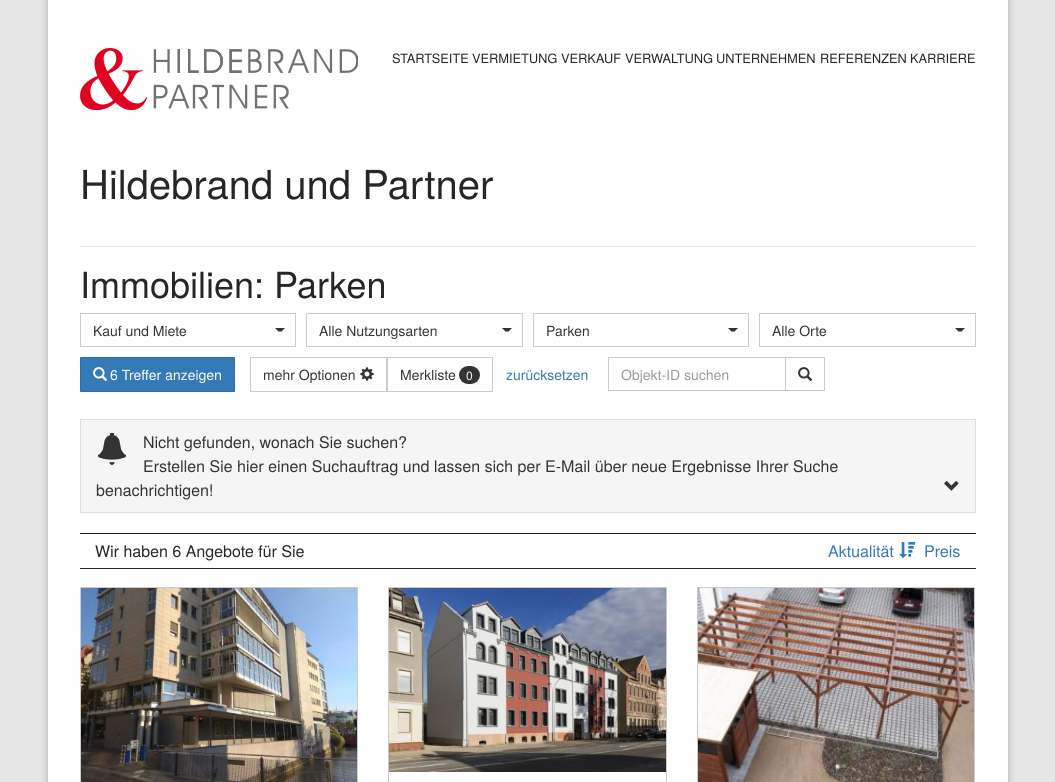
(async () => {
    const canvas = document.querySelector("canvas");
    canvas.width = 1055;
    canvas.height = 782;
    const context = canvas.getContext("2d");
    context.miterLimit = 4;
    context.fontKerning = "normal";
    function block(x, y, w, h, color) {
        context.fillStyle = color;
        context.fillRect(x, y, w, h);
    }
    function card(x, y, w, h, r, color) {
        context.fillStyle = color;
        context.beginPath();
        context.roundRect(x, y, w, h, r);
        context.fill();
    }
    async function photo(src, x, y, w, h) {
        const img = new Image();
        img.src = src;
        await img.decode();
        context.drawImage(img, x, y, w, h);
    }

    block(0, 0, 1055, 782, "rgb(230, 230, 230)");
    context.fillStyle = "rgba(0, 0, 0, 0.5)";
    context.filter = "blur(5px)";
    context.beginPath();
    context.rect(51, -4, 954, 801);
    context.fill();
    context.filter = "none";
    block(48, 0, 960, 782, "rgb(255, 255, 255)");
    await photo("media/1.png", 80, 48, 278, 62);
    await photo("media/2.png", 392, 53, 76, 11);
    await photo("media/3.png", 472, 53, 85, 11);
    await photo("media/4.png", 561, 53, 60, 11);
    await photo("media/5.png", 625, 53, 88, 11);
    await photo("media/6.png", 717, 53, 98, 11);
    await photo("media/7.png", 821, 53, 85, 10);
    await photo("media/8.png", 911, 53, 64, 10);
    await photo("media/9.png", 83, 169, 410, 31);
    block(80, 246, 896, 1, "rgb(230, 230, 230)");
    await photo("media/10.png", 83, 271, 301, 28);
    context.strokeStyle = "rgb(204, 204, 204)";
    context.strokeRect(80.5, 313.5, 215, 33);
    await photo("media/11.png", 94, 325, 93, 12);
    context.fillStyle = "rgb(51, 51, 51)";
    context.beginPath();
    context.moveTo(277, 328);
    context.lineTo(285, 328);
    context.lineTo(281, 332);
    context.closePath();
    context.fill();
    context.beginPath();
    context.moveTo(275, 328);
    context.lineTo(283, 328);
    context.lineTo(279, 332);
    context.closePath();
    context.fill();
    context.strokeRect(306.5, 313.5, 216, 33);
    await photo("media/12.png", 319, 325, 118, 14);
    context.beginPath();
    context.moveTo(504, 328);
    context.lineTo(512, 328);
    context.lineTo(508, 332);
    context.closePath();
    context.fill();
    context.beginPath();
    context.moveTo(502, 328);
    context.lineTo(510, 328);
    context.lineTo(506, 332);
    context.closePath();
    context.fill();
    context.strokeRect(533.5, 313.5, 215, 33);
    await photo("media/13.png", 547, 325, 42, 12);
    context.beginPath();
    context.moveTo(730, 328);
    context.lineTo(738, 328);
    context.lineTo(734, 332);
    context.closePath();
    context.fill();
    context.beginPath();
    context.moveTo(728, 328);
    context.lineTo(736, 328);
    context.lineTo(732, 332);
    context.closePath();
    context.fill();
    context.strokeRect(759.5, 313.5, 216, 33);
    await photo("media/14.png", 772, 325, 55, 12);
    context.beginPath();
    context.moveTo(957, 328);
    context.lineTo(965, 328);
    context.lineTo(961, 332);
    context.closePath();
    context.fill();
    context.beginPath();
    context.moveTo(955, 328);
    context.lineTo(963, 328);
    context.lineTo(959, 332);
    context.closePath();
    context.fill();
    context.fillStyle = "rgb(51, 122, 183)";
    context.beginPath();
    context.rect(80.5, 357.5, 154, 34);
    context.fill();
    context.strokeStyle = "rgb(46, 109, 164)";
    context.stroke();
    await photo("media/15.png", 93, 367, 15, 14);
    await photo("media/16.png", 110, 369, 111, 14);
    context.strokeStyle = "rgb(204, 204, 204)";
    context.strokeRect(250.5, 357.5, 136, 34);
    await photo("media/17.png", 264, 369, 91, 15);
    await photo("media/18.png", 360, 367, 14, 14);
    context.strokeRect(387.5, 357.5, 105, 34);
    await photo("media/19.png", 401, 369, 55, 12);
    card(459, 366, 21, 18, 9, "rgb(51, 51, 51)");
    await photo("media/20.png", 466, 371, 7, 10);
    await photo("media/21.png", 506, 369, 82, 12);
    context.strokeRect(608.5, 357.5, 184, 33);
    await photo("media/22.png", 621, 369, 108, 14);
    block(792, 358, 1, 32, "rgb(255, 255, 255)");
    context.strokeRect(785.5, 357.5, 39, 33);
    await photo("media/23.png", 798, 367, 15, 14);
    context.strokeStyle = "rgb(221, 221, 221)";
    context.strokeRect(80.5, 419.5, 895, 93);
    block(81, 420, 894, 92, "rgb(245, 245, 245)");
    await photo("media/24.png", 98, 433, 28, 32);
    await photo("media/25.png", 144, 436, 263, 16);
    await photo("media/26.png", 144, 460, 694, 16);
    await photo("media/27.png", 96, 484, 116, 16);
    await photo("media/28.png", 944, 480, 15, 11);
    block(80, 533, 896, 1, "rgb(38, 38, 38)");
    block(80, 568, 896, 1, "rgb(38, 38, 38)");
    await photo("media/29.png", 95, 545, 209, 16);
    await photo("media/30.png", 828, 545, 66, 13);
    await photo("media/31.png", 899, 542, 17, 16);
    await photo("media/32.png", 925, 545, 35, 13);
    context.strokeStyle = "rgb(204, 204, 204)";
    context.strokeRect(80.5, 587.5, 277, 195);
    await photo("media/33.png", 81, 588, 276, 194);
    context.strokeRect(388.5, 587.5, 278, 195);
    await photo("media/34.png", 389, 588, 277, 184);
    context.strokeRect(697.5, 587.5, 277, 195);
    await photo("media/35.png", 698, 588, 276, 194);
})();
